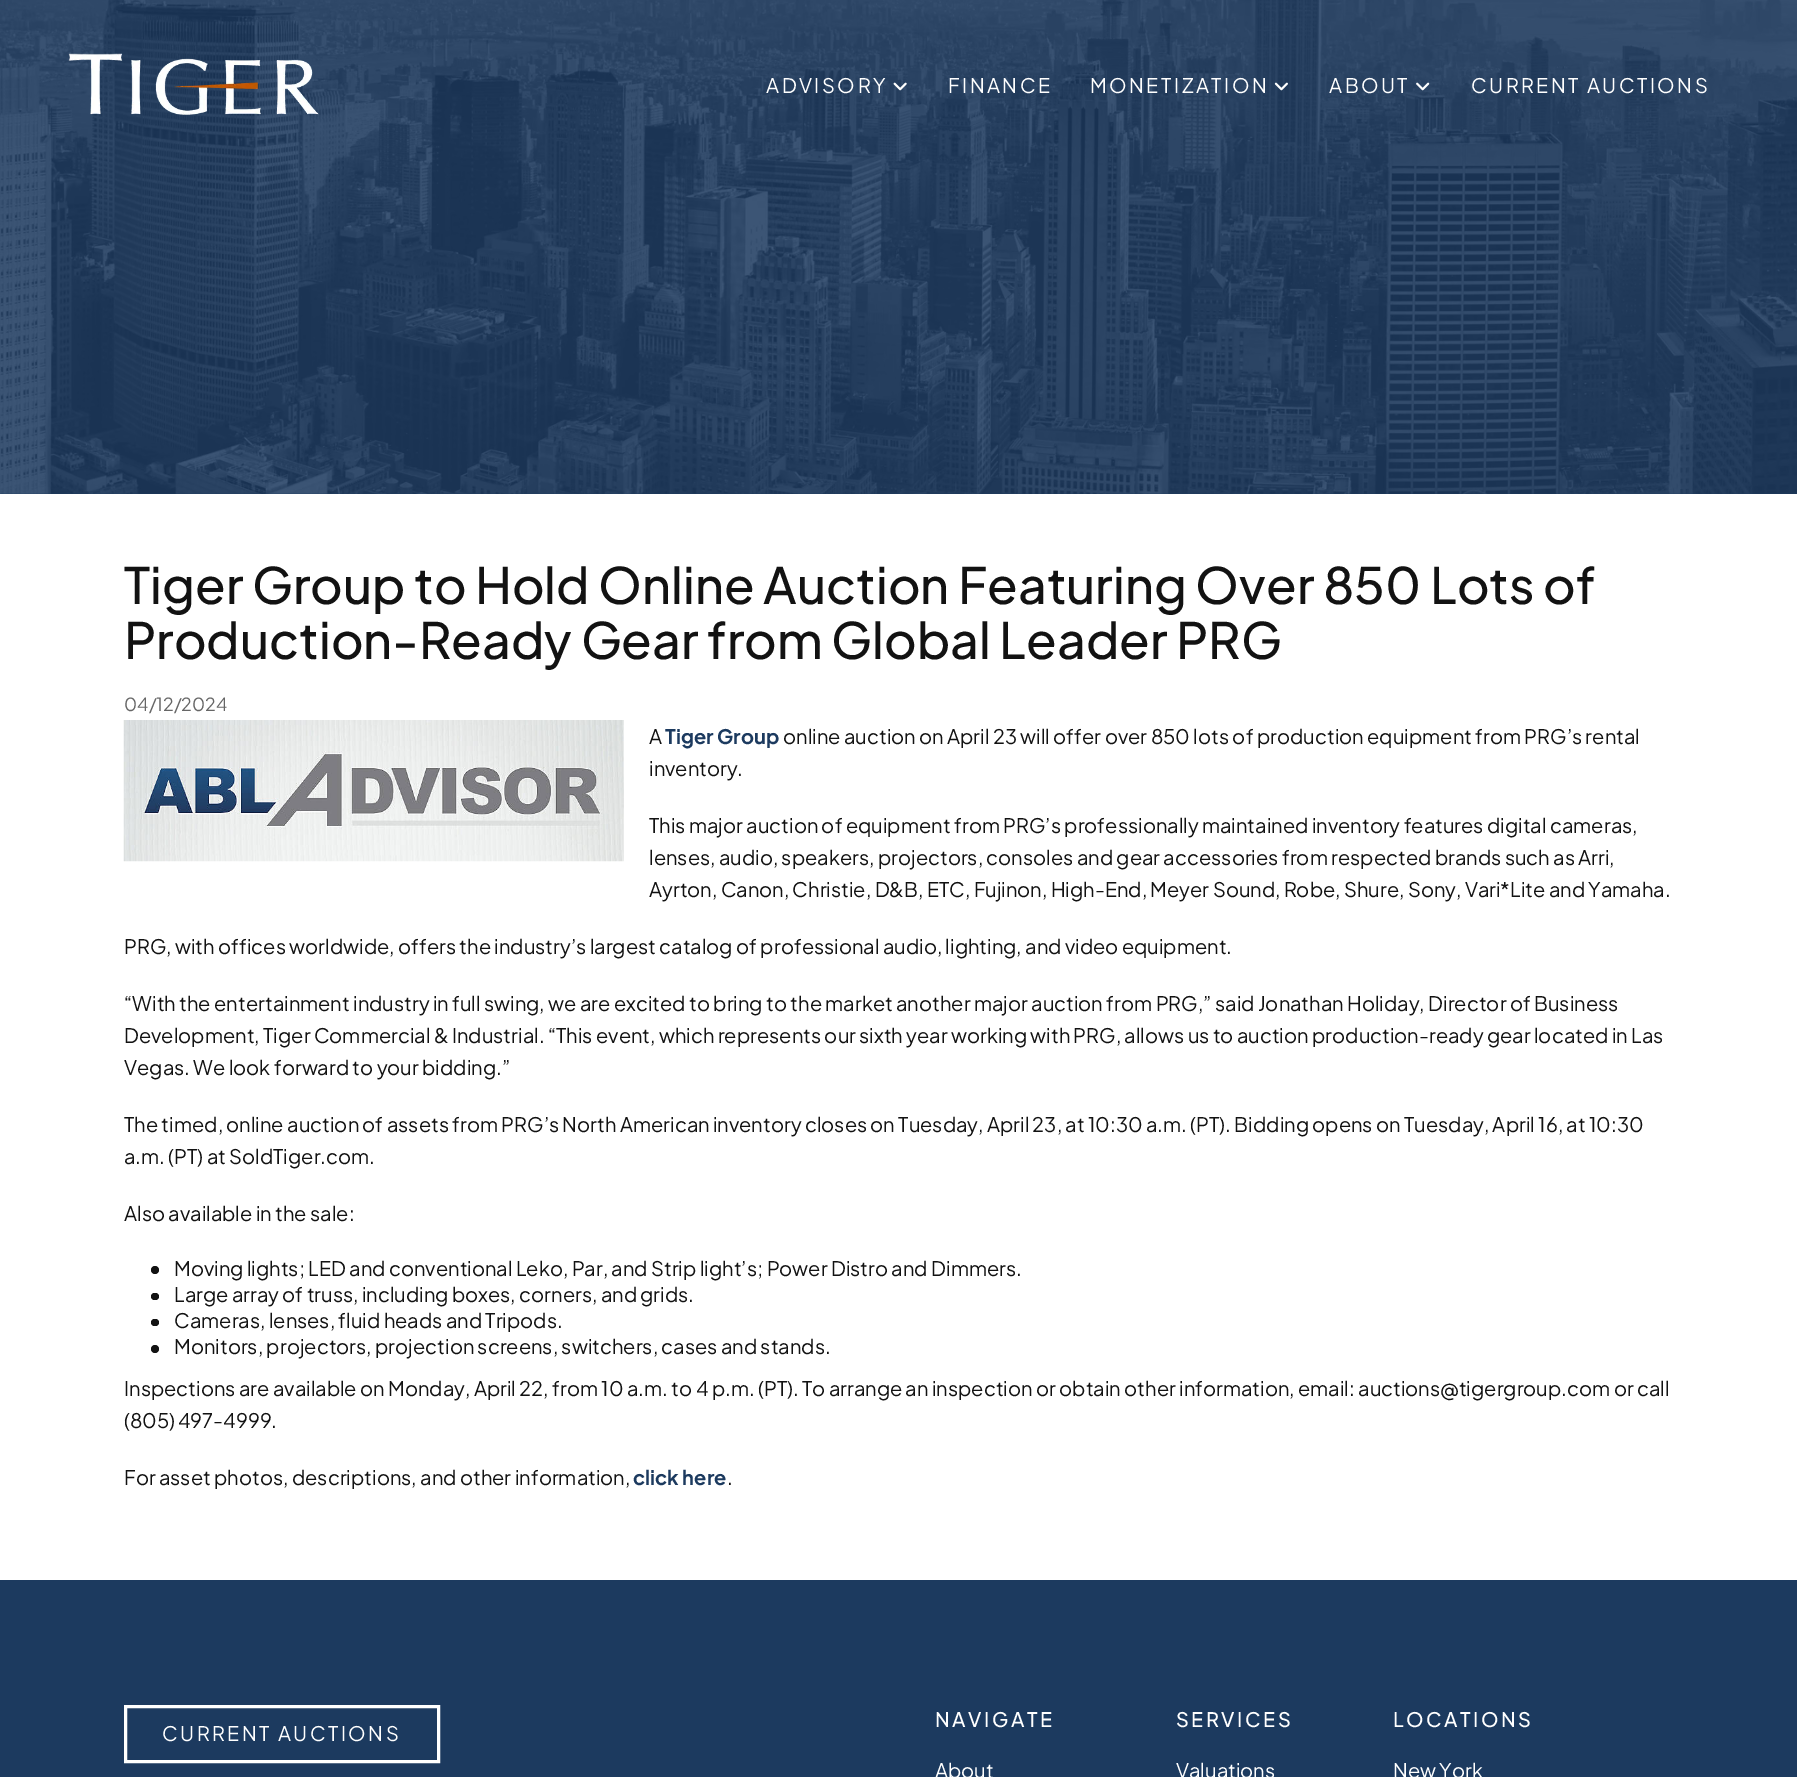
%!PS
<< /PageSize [1797 1777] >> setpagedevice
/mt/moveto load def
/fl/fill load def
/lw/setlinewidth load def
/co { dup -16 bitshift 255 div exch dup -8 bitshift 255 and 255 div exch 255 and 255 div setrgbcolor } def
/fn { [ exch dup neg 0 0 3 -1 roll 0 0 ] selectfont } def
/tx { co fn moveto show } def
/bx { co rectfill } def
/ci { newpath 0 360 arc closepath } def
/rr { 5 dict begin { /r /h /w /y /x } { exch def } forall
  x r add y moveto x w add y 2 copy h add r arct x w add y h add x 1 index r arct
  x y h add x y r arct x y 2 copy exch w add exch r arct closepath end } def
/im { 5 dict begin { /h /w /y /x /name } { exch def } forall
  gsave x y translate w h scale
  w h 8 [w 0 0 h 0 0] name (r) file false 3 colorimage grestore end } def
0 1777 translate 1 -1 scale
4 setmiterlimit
0 0 1797 1777 16#FFFFFF bx
0 0 1797 494 16#1C3A5F bx
(media/1.raw) 0 0 1797 494 im
(media/2.raw) 68 53 251 62 im
(media/3.raw) 893 82 14 9 im
(media/4.raw) 1274 82 14 9 im
(media/5.raw) 1416 82 14 9 im
(media/6.raw) 123 720 501 142 im
16#121212 co
155 1270 4 ci fl
151 1293 8 7 3.5 rr fl
151 1319 8 7 3.5 rr fl
155 1349 4 ci fl
0 1580 1797 197 16#1C3A5F bx
16#FFFFFF co
3 lw
125.5 1706.5 313 55 rectstroke
/PlusJakartaSans-Regular 20 fn
766 93 mt 2.5 0 (ADVISORY) ashow
948 93 mt 2.5 0 (FINANCE) ashow
1090 93 mt 2.5 0 (MONETIZATION) ashow
1329 93 mt 2.5 0 (ABOUT) ashow
1471 93 mt 2.5 0 (CURRENT AUCTIONS) ashow
(Tiger Group to Hold Online Auction Featuring Over 850 Lots of) 124 604 /PlusJakartaSans-Medium 50 16#121212 tx
(Production-Ready Gear from Global Leader PRG) 124 659 /PlusJakartaSans-Medium 50 16#121212 tx
(04/12/2024) 124 711 /PlusJakartaSans-Regular 18 16#666666 tx
(A) 649 744 /PlusJakartaSans-Regular 20 16#121212 tx
(Tiger Group) 665 744 /PlusJakartaSans-Bold 20 16#1C3A5F tx
(online auction on April 23 will offer over 850 lots of production equipment from PRG’s rental) 783 744 /PlusJakartaSans-Regular 20 16#121212 tx
(inventory.) 649 776 /PlusJakartaSans-Regular 20 16#121212 tx
(This major auction of equipment from PRG’s professionally maintained inventory features digital cameras,) 649 833 /PlusJakartaSans-Regular 20 16#121212 tx
(lenses, audio, speakers, projectors, consoles and gear accessories from respected brands such as Arri,) 649 865 /PlusJakartaSans-Regular 20 16#121212 tx
(Ayrton, Canon, Christie, D&B, ETC, Fujinon, High-End, Meyer Sound, Robe, Shure, Sony, Vari*Lite and Yamaha.) 649 897 /PlusJakartaSans-Regular 20 16#121212 tx
(PRG, with offices worldwide, offers the industry’s largest catalog of professional audio, lighting, and video equipment.) 124 954 /PlusJakartaSans-Regular 20 16#121212 tx
(“With the entertainment industry in full swing, we are excited to bring to the market another major auction from PRG,” said Jonathan Holiday, Director of Business) 124 1011 /PlusJakartaSans-Regular 20 16#121212 tx
(Development, Tiger Commercial & Industrial. “This event, which represents our sixth year working with PRG, allows us to auction production-ready gear located in Las) 124 1043 /PlusJakartaSans-Regular 20 16#121212 tx
(Vegas. We look forward to your bidding.”) 124 1075 /PlusJakartaSans-Regular 20 16#121212 tx
(The timed, online auction of assets from PRG’s North American inventory closes on Tuesday, April 23, at 10:30 a.m. \(PT\). Bidding opens on Tuesday, April 16, at 10:30) 124 1132 /PlusJakartaSans-Regular 20 16#121212 tx
(a.m. \(PT\) at SoldTiger.com.) 124 1164 /PlusJakartaSans-Regular 20 16#121212 tx
(Also available in the sale:) 124 1221 /PlusJakartaSans-Regular 20 16#121212 tx
(Moving lights; LED and conventional Leko, Par, and Strip light’s; Power Distro and Dimmers.) 174 1276 /PlusJakartaSans-Regular 20 16#121212 tx
(Large array of truss, including boxes, corners, and grids.) 174 1302 /PlusJakartaSans-Regular 20 16#121212 tx
(Cameras, lenses, fluid heads and Tripods.) 174 1328 /PlusJakartaSans-Regular 20 16#121212 tx
(Monitors, projectors, projection screens, switchers, cases and stands.) 174 1354 /PlusJakartaSans-Regular 20 16#121212 tx
(Inspections are available on Monday, April 22, from 10 a.m. to 4 p.m. \(PT\). To arrange an inspection or obtain other information, email: auctions@tigergroup.com or call) 124 1396 /PlusJakartaSans-Regular 20 16#121212 tx
124 1428 mt -1 0 32 (\(805\) 497-4999.) widthshow
(For asset photos, descriptions, and other information,) 124 1485 /PlusJakartaSans-Regular 20 16#121212 tx
(click here) 633 1485 /PlusJakartaSans-Bold 20 16#1C3A5F tx
(.) 727 1485 /PlusJakartaSans-Regular 20 16#121212 tx
16#FFFFFF co
162 1741 mt 2.5 0 (CURRENT AUCTIONS) ashow
/PlusJakartaSans-Medium 20 fn
935 1727 mt 2.5 0 (NAVIGATE) ashow
(About) 935 1778 /PlusJakartaSans-Regular 20 16#FFFFFF tx
/PlusJakartaSans-Medium 20 fn
1176 1727 mt 2.5 0 (SERVICES) ashow
(Valuations) 1176 1778 /PlusJakartaSans-Regular 20 16#FFFFFF tx
/PlusJakartaSans-Medium 20 fn
1393 1727 mt 2.5 0 (LOCATIONS) ashow
(New York) 1393 1778 /PlusJakartaSans-Regular 20 16#FFFFFF tx
showpage
